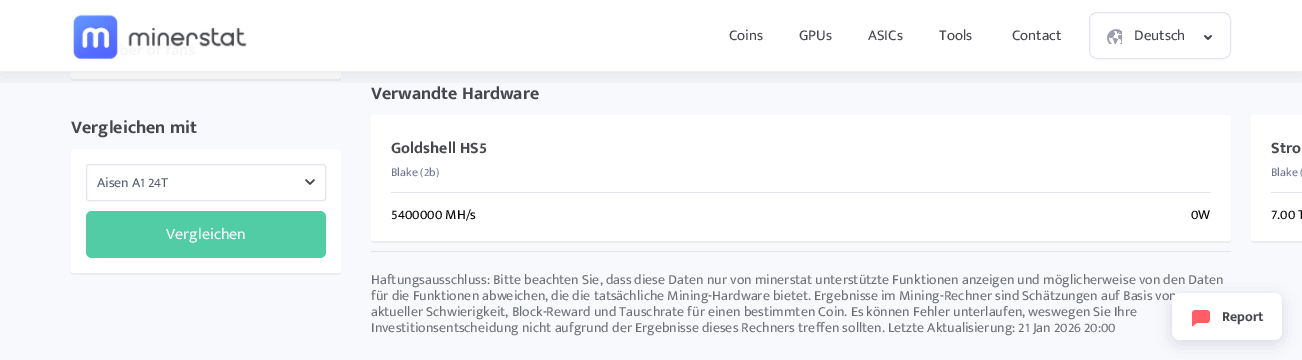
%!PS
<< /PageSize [1302 360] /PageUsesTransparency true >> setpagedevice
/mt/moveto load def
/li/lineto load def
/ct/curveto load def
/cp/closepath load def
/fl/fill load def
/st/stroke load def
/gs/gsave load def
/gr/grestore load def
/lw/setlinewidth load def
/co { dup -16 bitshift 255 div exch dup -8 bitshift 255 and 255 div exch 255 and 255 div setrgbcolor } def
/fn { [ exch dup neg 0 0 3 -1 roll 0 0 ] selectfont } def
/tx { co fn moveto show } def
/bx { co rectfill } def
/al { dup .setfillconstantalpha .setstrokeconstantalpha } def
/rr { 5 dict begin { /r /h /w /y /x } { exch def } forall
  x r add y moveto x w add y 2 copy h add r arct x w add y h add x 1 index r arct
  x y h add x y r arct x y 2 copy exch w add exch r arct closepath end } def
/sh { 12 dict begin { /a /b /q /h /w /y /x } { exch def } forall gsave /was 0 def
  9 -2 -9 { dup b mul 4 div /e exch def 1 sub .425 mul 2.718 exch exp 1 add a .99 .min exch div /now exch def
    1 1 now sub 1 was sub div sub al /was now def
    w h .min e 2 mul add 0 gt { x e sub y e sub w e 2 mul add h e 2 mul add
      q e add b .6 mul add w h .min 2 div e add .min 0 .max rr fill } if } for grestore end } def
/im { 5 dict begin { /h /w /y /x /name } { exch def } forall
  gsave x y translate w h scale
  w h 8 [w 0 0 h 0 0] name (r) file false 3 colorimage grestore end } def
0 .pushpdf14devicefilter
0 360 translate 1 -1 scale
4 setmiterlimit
0 0 1302 360 16#F8F9FC bx
0 0 1302 71 16#FFFFFF bx
16#ECEDEF co
71 76 mt 71 78 li 71 80 72 81 74 81 ct 338 81 li 340 81 341 80 341 78 ct 341 76 li 341 78 340 79 338 79 ct 74 79 li 72 79 71 78 71 76 ct cp fl
16#FFFFFF co
71 -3 270 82 3 rr fl
gs
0 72 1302 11 rectclip
16#000000 co
0 4 1302 72 0 10 .08 sh
gr
0 71 1302 1 16#F0F2F7 bx
(media/1.raw) 73 14 174 45 im
16#E2E5EF co
1089.5 12.5 141 46 7.5 rr st
(media/2.raw) 1107 29 15 15 im
(media/3.raw) 1204 35 8 5 im
16#ECEDEF co
71 270 mt 71 272 li 71 274 72 275 74 275 ct 338 275 li 340 275 341 274 341 272 ct 341 270 li 341 272 340 273 338 273 ct 74 273 li 72 273 71 272 71 270 ct cp fl
16#FFFFFF co
71 149 270 124 3 rr fl
16#E2E5EF co
86.5 164.5 239 36 2.5 rr st
16#46474F co
1.5 lw
1 setlinecap
1 setlinejoin
306 180 mt 310 184 li 314 180 li st
16#52CCA5 co
86 211 240 47 6 rr fl
16#ECEDEF co
371 238 mt 371 240 li 371 242 372 243 374 243 ct 1228 243 li 1230 243 1231 242 1231 240 ct 1231 238 li 1231 240 1230 241 1228 241 ct 374 241 li 372 241 371 240 371 238 ct cp fl
16#FFFFFF co
371 115 860 126 3 rr fl
391 192 820 1 16#E2E5EF bx
16#ECEDEF co
1251 238 mt 1251 240 li 1251 242 1252 243 1254 243 ct 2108 243 li 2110 243 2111 242 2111 240 ct 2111 238 li 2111 240 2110 241 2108 241 ct 1254 241 li 1252 241 1251 240 1251 238 ct cp fl
16#FFFFFF co
1251 115 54 126 3 rr fl
1271 192 31 1 16#E2E5EF bx
371 251 860 1 16#E2E5EF bx
16#00003C co
1172 297 110 47 8 8 .12 sh
(Coins) 729 40 /MuktaMahee-Regular 15 16#46474F tx
(GPUs) 799 40 /MuktaMahee-Regular 15 16#46474F tx
(ASICs) 868 40 /MuktaMahee-Regular 15 16#46474F tx
(Tools) 939 40 /MuktaMahee-Regular 15 16#46474F tx
(Contact) 1012 40 /MuktaMahee-Regular 15 16#46474F tx
(Deutsch) 1134 40 /MuktaMahee-Regular 15 16#46474F tx
(Vergleichen mit) 71 133 /MuktaMahee-Bold 18 16#46474F tx
(Aisen A1 24T) 97 187 /MuktaMahee-Regular 14 16#575E71 tx
(Vergleichen) 166 239 /MuktaMahee-Regular 16 16#FFFFFF tx
(Verwandte Hardware) 371 99 /MuktaMahee-Bold 18 16#46474F tx
(Goldshell HS5) 391 153 /MuktaMahee-Bold 16 16#46474F tx
(Blake \(2b\)) 391 176 /MuktaMahee-Regular 12 16#6F7490 tx
(5400000 MH/s) 391 219 /MuktaMahee-Regular 14 16#000000 tx
(0W) 1191 219 /MuktaMahee-Regular 14 16#000000 tx
(Stro) 1271 153 /MuktaMahee-Bold 16 16#46474F tx
(Blake \() 1271 176 /MuktaMahee-Regular 12 16#6F7490 tx
(7.00 T) 1271 219 /MuktaMahee-Regular 14 16#000000 tx
(Haftungsausschluss: Bitte beachten Sie, dass diese Daten nur von minerstat unterstützte Funktionen anzeigen und möglicherweise von den Daten) 371 284 /MuktaMahee-Regular 14 16#6C6E79 tx
(für die Funktionen abweichen, die die tatsächliche Mining-Hardware bietet. Ergebnisse im Mining-Rechner sind Schätzungen auf Basis von) 371 300 /MuktaMahee-Regular 14 16#6C6E79 tx
(aktueller Schwierigkeit, Block-Reward und Tauschrate für einen bestimmten Coin. Es können Fehler unterlaufen, weswegen Sie Ihre) 371 316 /MuktaMahee-Regular 14 16#6C6E79 tx
(Investitionsentscheidung nicht aufgrund der Ergebnisse dieses Rechners treffen sollten. Letzte Aktualisierung: 21 Jan 2026 20:00) 371 332 /MuktaMahee-Regular 14 16#6C6E79 tx
16#FFFFFF co
1172 293 110 47 8 rr fl
(media/4.raw) 1192 310 18 17 im
(Report) 1222 321 /MuktaMahee-Bold 14 16#46474F tx
.poppdf14devicefilter showpage
